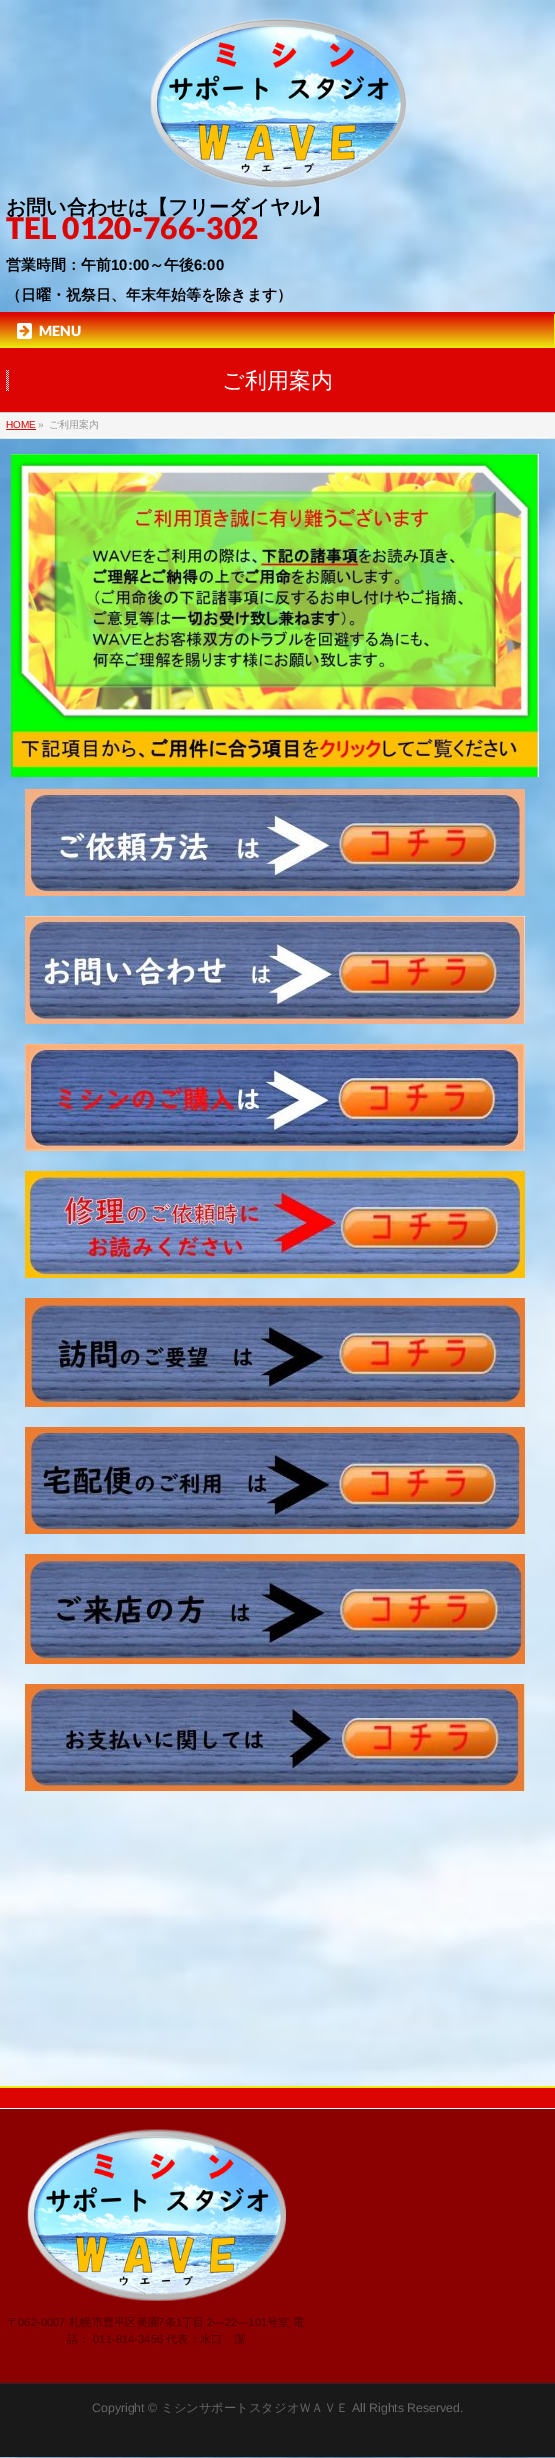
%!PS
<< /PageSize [555 2458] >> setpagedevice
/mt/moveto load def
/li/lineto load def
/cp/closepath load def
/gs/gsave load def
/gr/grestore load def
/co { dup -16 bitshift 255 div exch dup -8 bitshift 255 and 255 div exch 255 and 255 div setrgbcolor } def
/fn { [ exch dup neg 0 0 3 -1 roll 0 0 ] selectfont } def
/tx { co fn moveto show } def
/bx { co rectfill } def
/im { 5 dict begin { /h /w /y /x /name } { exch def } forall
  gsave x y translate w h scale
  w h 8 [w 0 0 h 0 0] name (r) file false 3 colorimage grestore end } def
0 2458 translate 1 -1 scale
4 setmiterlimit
0 0 555 2458 16#FFFFFF bx
(media/1.raw) 0 0 555 2458 im
(media/2.raw) 150 18 256 170 im
0 312 555 2 16#DD0404 bx
gs 0 314 mt 554 314 li 554 348 li 0 348 li cp clip newpath
<< /ShadingType 2 /ColorSpace /DeviceRGB /Coords [277 314 277 348] /Extend [true true] /Function << /FunctionType 2 /Domain [0 1] /C0 [.867 .016 .016] /C1 [.929 .929 .055] /N 1 >> >> shfill gr
554 314 1 34 16#EDED0E bx
(media/3.raw) 17 323 15 16 im
0 348 555 64 16#DD0404 bx
0 412 555 1 16#CCCCCC bx
(media/4.raw) 6 370 3 21 im
0 413 555 25 16#F5F5F5 bx
0 438 555 1 16#E5E5E5 bx
6 437 543 1 16#FFFFFF bx
6 429 30 1 16#DD0404 bx
(media/5.raw) 11 454 528 323 im
(media/6.raw) 25 789 500 107 im
(media/7.raw) 25 916 500 108 im
(media/8.raw) 25 1044 500 107 im
(media/9.raw) 25 1171 500 107 im
(media/10.raw) 25 1298 500 109 im
(media/11.raw) 25 1427 500 107 im
(media/12.raw) 25 1554 500 110 im
(media/13.raw) 25 1684 500 107 im
0 2088 555 20 16#DD0404 bx
0 2086 555 2 16#EDED0E bx
0 2109 555 274 16#8B0000 bx
0 2108 555 1 16#FFFFFF bx
(media/14.raw) 27 2129 259 172 im
0 2384 555 73 16#191919 bx
0 2383 555 1 16#262626 bx
(お問い合わせは【フリーダイヤル】) 6 214 /WenQuanYiZenHei-Bold 20 16#000000 tx
(TEL 0120-766-302) 6 239 /Lato-Black 30 16#DD0404 tx
(営業時間：午前) 6 270 /WenQuanYiZenHei-Bold 15 16#000000 tx
(10:00) 111 270 /LiberationSans-Bold 15 16#000000 tx
(～午後) 149 270 /WenQuanYiZenHei-Bold 15 16#000000 tx
(6:00) 194 270 /LiberationSans-Bold 15 16#000000 tx
(（日曜・祝祭日、年末年始等を除きます）) 6 300 /WenQuanYiZenHei-Bold 15 16#000000 tx
(MENU) 39 336 /Lato-Black 14 16#FFFFFF tx
(ご利用案内) 222 388 /WenQuanYiZenHei-Medium 22 16#FFFFFF tx
(HOME) 6 428 /LiberationSans-Regular 10 16#DD0404 tx
(») 38 428 /LiberationSans-Regular 10 16#999999 tx
(ご利用案内) 49 428 /WenQuanYiZenHei-Medium 10 16#999999 tx
(〒) 7 2326 /WenQuanYiZenHei-Medium 11.25 16#4C0102 tx
(062-0007) 18 2326 /LiberationSans-Regular 11.25 16#4C0102 tx
(札幌市豊平区美園) 69 2326 /WenQuanYiZenHei-Medium 11.25 16#4C0102 tx
(7) 158 2326 /LiberationSans-Regular 11.25 16#4C0102 tx
(条) 165 2326 /WenQuanYiZenHei-Medium 11.25 16#4C0102 tx
(1) 176 2326 /LiberationSans-Regular 11.25 16#4C0102 tx
(丁目) 182 2326 /WenQuanYiZenHei-Medium 11.25 16#4C0102 tx
(2―22―101) 207 2326 /LiberationSans-Regular 11.25 16#4C0102 tx
(号室) 267 2326 /WenQuanYiZenHei-Medium 11.25 16#4C0102 tx
(電) 293 2326 /WenQuanYiZenHei-Medium 11.25 16#4C0102 tx
(話：) 67 2343 /WenQuanYiZenHei-Medium 11.25 16#4C0102 tx
(011-814-3456) 93 2343 /LiberationSans-Regular 11.25 16#4C0102 tx
(代表：水口　潔) 166 2343 /WenQuanYiZenHei-Medium 11.25 16#4C0102 tx
(Copyright ©) 92 2412 /LiberationSans-Regular 12.3 16#666666 tx
(ミシンサポートスタジオＷＡＶＥ) 161 2412 /WenQuanYiZenHei-Medium 12.3 16#666666 tx
(All Rights Reserved.) 352 2412 /LiberationSans-Regular 12.3 16#666666 tx
showpage
